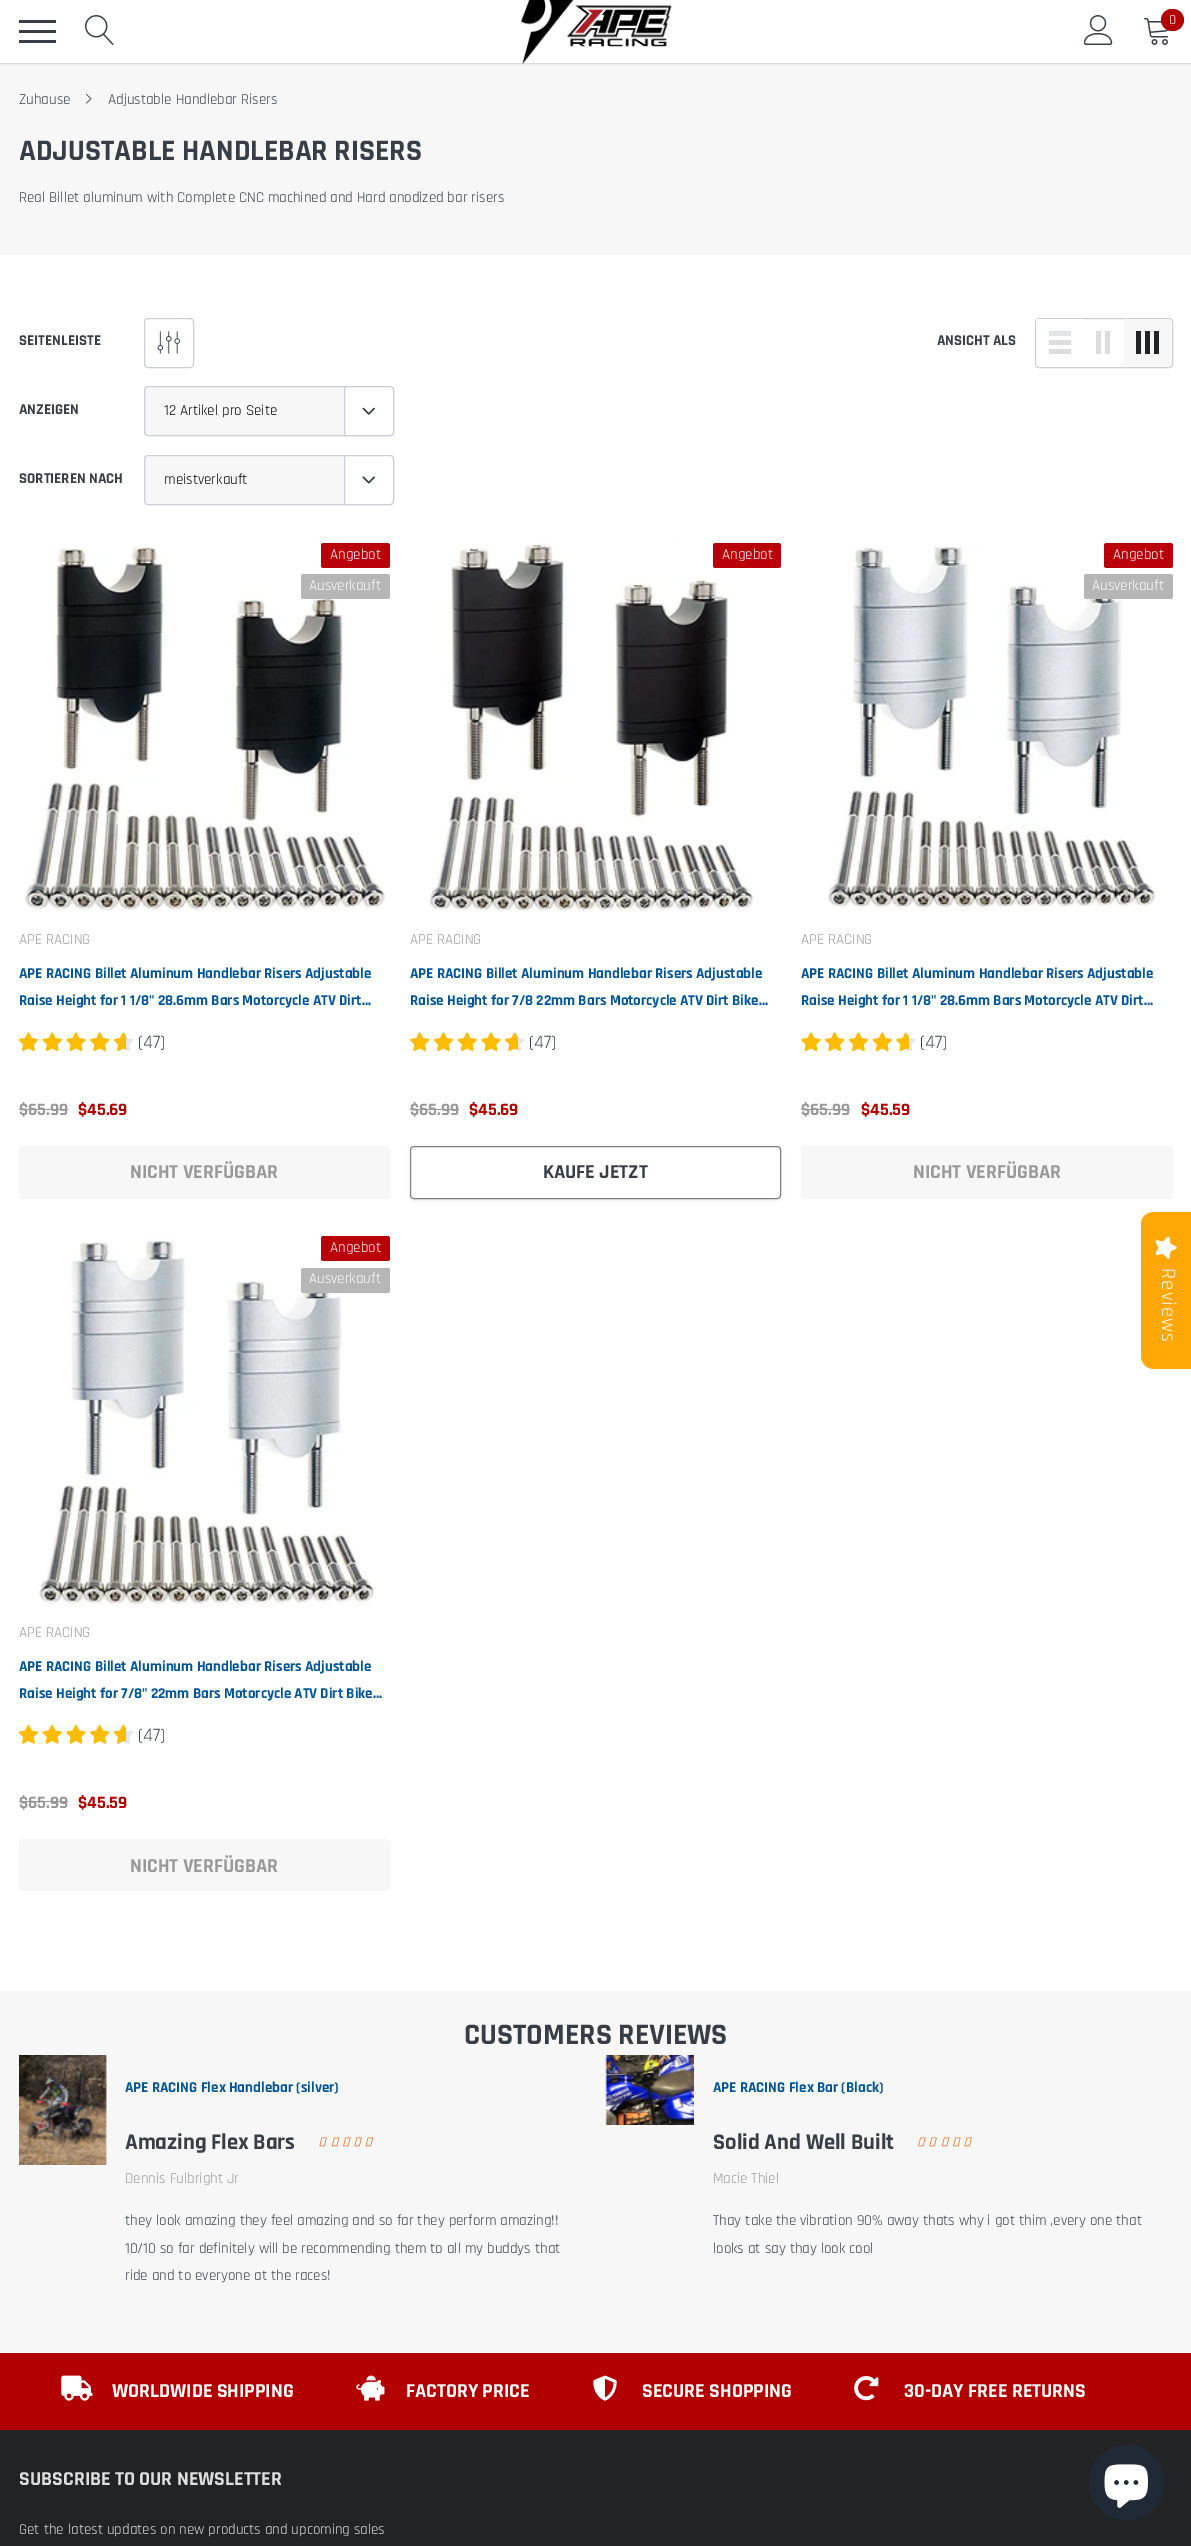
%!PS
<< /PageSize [1191 2546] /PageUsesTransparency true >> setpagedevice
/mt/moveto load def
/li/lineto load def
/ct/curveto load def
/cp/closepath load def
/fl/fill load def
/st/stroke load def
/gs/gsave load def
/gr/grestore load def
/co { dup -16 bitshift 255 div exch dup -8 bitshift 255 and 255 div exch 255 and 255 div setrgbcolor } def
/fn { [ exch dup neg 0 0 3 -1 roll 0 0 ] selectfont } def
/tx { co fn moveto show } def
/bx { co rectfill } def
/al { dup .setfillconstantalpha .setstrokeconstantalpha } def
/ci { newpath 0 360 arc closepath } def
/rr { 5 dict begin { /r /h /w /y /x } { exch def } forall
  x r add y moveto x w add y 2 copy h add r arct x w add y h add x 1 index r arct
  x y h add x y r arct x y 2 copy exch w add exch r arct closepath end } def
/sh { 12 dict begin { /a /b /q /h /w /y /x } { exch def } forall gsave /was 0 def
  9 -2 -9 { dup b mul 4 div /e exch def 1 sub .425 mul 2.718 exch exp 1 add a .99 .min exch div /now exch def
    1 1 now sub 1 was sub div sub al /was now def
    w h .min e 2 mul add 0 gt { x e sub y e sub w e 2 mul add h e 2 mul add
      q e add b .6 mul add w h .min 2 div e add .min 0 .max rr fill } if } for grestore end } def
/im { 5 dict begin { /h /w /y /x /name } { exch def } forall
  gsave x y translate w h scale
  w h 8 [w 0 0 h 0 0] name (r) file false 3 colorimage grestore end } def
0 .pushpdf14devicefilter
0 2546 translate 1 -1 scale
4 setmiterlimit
0 0 1191 2546 16#FFFFFF bx
0 63 1191 192 16#F7F7F7 bx
16#000000 co
0 1 1191 63 0 1 .15 sh
0 0 1191 63 16#FFFFFF bx
19 30 37 3 16#383E47 bx
19 20 37 3 16#383E47 bx
19 40 37 3 16#383E47 bx
(media/1.raw) 85 15 29 30 im
(media/2.raw) 521 0 151 64 im
(media/3.raw) 1084 15 29 30 im
(media/4.raw) 1144 18 24 27 im
16#B20000 co
1161 9 23 22 11 rr fl
(media/5.raw) 85 94 7 10 im
16#CCCFD6 co
144.5 318.5 49 49 3.5 rr st
(media/6.raw) 157 331 23 23 im
1035.5 318.5 137 49 3.5 rr st
16#FFFFFF co
1038.5 319 mt 1084 319 li 1084 366 li 1038.5 366 li 1037 366 1036 365 1036 363.5 ct 1036 321.5 li 1036 320 1037 319 1038.5 319 ct cp fl
1049 349 22 5 16#DCDCDC bx
1049 340 22 5 16#DCDCDC bx
1049 331 22 5 16#E2E4E8 bx
1105 331 5 23 16#DCDCDC bx
1096 331 5 23 16#DCDCDC bx
16#F7F7F7 co
1124 319 mt 1168.5 319 li 1170 319 1171 320 1171 321.5 ct 1171 363.5 li 1171 365 1170 366 1168.5 366 ct 1124 366 li cp fl
1154 331 5 23 16#222326 bx
1145 331 5 23 16#222326 bx
1136 331 5 23 16#222326 bx
16#F7F7F7 co
144.5 386.5 249 49 3.5 rr gs fl gr
16#CCCFD6 co
st
16#FFFFFF co
344.5 386.5 mt 390 386.5 li 392 386.5 393.5 388 393.5 390 ct 393.5 432 li 393.5 434 392 435.5 390 435.5 ct 344.5 435.5 li cp gs fl gr
16#CCCFD6 co
st
(media/7.raw) 362 407 13 8 im
16#F7F7F7 co
144.5 455.5 249 49 3.5 rr gs fl gr
16#CCCFD6 co
st
16#FFFFFF co
344.5 455.5 mt 390 455.5 li 392 455.5 393.5 457 393.5 459 ct 393.5 501 li 393.5 503 392 504.5 390 504.5 ct 344.5 504.5 li cp gs fl gr
16#CCCFD6 co
st
(media/8.raw) 362 476 13 8 im
(media/9.raw) 24 547 362 364 im
16#B9000A co
321 543 69 25 2.5 rr fl
16#B6B6B6 co
301 574 89 25 2.5 rr fl
(media/10.raw) 19 1032 20 20 im
(media/11.raw) 42 1032 20 20 im
(media/12.raw) 66 1032 20 20 im
(media/13.raw) 90 1032 20 20 im
(media/14.raw) 114 1032 19 19 im
(media/15.raw) 114 1033 12 18 im
19 1109 49 1 16#999999 bx
16#F7F7F7 co
19 1146 371 53 4 rr fl
(media/16.raw) 445 542 299 1 im
(media/17.raw) 429 543 325 369 im
16#B9000A co
713 543 68 25 2.5 rr fl
(media/13.raw) 410 1032 20 20 im
(media/18.raw) 433 1032 21 20 im
(media/11.raw) 457 1032 20 20 im
(media/12.raw) 481 1032 20 20 im
(media/19.raw) 505 1032 20 19 im
(media/20.raw) 505 1033 13 18 im
410 1109 49 1 16#999999 bx
16#000000 co
410 1148 371 52 4 2 .1 sh
16#FFFFFF co
410.5 1146.5 370 52 3.5 rr gs fl gr
16#808287 co
st
(media/21.raw) 828 545 329 366 im
16#B9000A co
1104 543 69 25 2.5 rr fl
16#B6B6B6 co
1084 574 89 25 2.5 rr fl
(media/12.raw) 801 1032 20 20 im
(media/13.raw) 825 1032 20 20 im
(media/18.raw) 848 1032 21 20 im
(media/11.raw) 872 1032 20 20 im
(media/22.raw) 896 1032 20 19 im
(media/23.raw) 896 1033 13 18 im
801 1109 49 1 16#999999 bx
16#F7F7F7 co
801 1146 372 53 4 rr fl
(media/24.raw) 39 1238 337 367 im
16#B9000A co
321 1236 69 25 2.5 rr fl
16#B6B6B6 co
301 1268 89 25 2.5 rr fl
(media/25.raw) 19 1725 20 19 im
(media/26.raw) 42 1725 20 19 im
(media/27.raw) 66 1725 20 19 im
(media/28.raw) 90 1725 20 19 im
(media/29.raw) 113 1725 20 19 im
(media/30.raw) 114 1725 12 19 im
19 1801 49 1 16#999999 bx
16#F7F7F7 co
19 1839 371 52 4 rr fl
0 1991 1191 362 16#F7F7F7 bx
(media/31.raw) 19 2055 88 110 im
(media/32.raw) 319 2137 8 10 im
(media/33.raw) 331 2137 9 10 im
(media/34.raw) 343 2137 8 10 im
(media/32.raw) 354 2137 8 10 im
(media/35.raw) 365 2137 9 10 im
(media/36.raw) 605 2055 89 70 im
(media/34.raw) 918 2137 8 10 im
(media/32.raw) 929 2137 8 10 im
(media/33.raw) 941 2137 9 10 im
(media/34.raw) 953 2137 8 10 im
(media/32.raw) 964 2137 8 10 im
0 2353 1191 77 16#B20000 bx
(media/37.raw) 61 2375 32 26 im
(media/38.raw) 356 2375 29 26 im
(media/39.raw) 593 2375 24 26 im
(media/40.raw) 854 2376 25 25 im
0 2430 1191 116 16#222325 bx
16#FEA705 co
1191 1212 mt 1191 1369 li 1154 1369 li 1147 1369 1141 1363 1141 1356 ct 1141 1224 li 1141 1217 1147 1212 1154 1212 ct cp fl
(media/41.raw) 1155 1236 22 23 im
16#202A36 co
1126.5 2482.5 37.5 ci fl
(media/42.raw) 1104 2464 44 44 im
(0) 1169 24 /Rajdhani-Regular 14 16#FFFFFF tx
(Zuhause) 19 104 /Rajdhani-Regular 15 16#383E47 tx
(Adjustable Handlebar Risers) 108 104 /Rajdhani-Regular 15 16#383E47 tx
(ADJUSTABLE HANDLEBAR RISERS) 19 160 /Rajdhani-Bold 30 16#383E47 tx
(Real Billet aluminum with Complete CNC machined and Hard anodized bar risers) 19 202 /Rajdhani-Regular 15 16#383E47 tx
(SEITENLEISTE) 19 345 /Rajdhani-Bold 15 16#383E47 tx
(ANSICHT ALS) 937 345 /Rajdhani-Bold 15 16#383E47 tx
(ANZEIGEN) 19 414 /Rajdhani-Bold 15 16#383E47 tx
(12 Artikel pro Seite) 164 415 /Rajdhani-Regular 15 16#000000 tx
(SORTIEREN NACH) 19 483 /Rajdhani-Bold 15 16#383E47 tx
(meistverkauft) 164 484 /Rajdhani-Regular 15 16#000000 tx
(Angebot) 330 559 /Rajdhani-Regular 15 16#FFFFFF tx
(Ausverkauft) 309 590 /Rajdhani-Regular 15 16#FFFFFF tx
(APE RACING) 19 944 /Rajdhani-Regular 15 16#999999 tx
(APE RACING Billet Aluminum Handlebar Risers Adjustable) 19 978 /Rajdhani-Bold 15 16#005599 tx
(Raise Height for 1 1/8" 28.6mm Bars Motorcycle ATV Dirt…) 19 1005 /Rajdhani-Bold 15 16#005599 tx
(\(47\)) 138 1048 /Rajdhani-Regular 19 16#383E47 tx
($65.99) 19 1115 /Rajdhani-Bold 17.5 16#999999 tx
($45.69) 78 1115 /Rajdhani-Bold 17.5 16#B20000 tx
(NICHT VERFÜGBAR) 130 1178 /Rajdhani-Bold 20 16#999999 tx
(Angebot) 722 559 /Rajdhani-Regular 15 16#FFFFFF tx
(APE RACING) 410 944 /Rajdhani-Regular 15 16#999999 tx
(APE RACING Billet Aluminum Handlebar Risers Adjustable) 410 978 /Rajdhani-Bold 15 16#005599 tx
(Raise Height for 7/8 22mm Bars Motorcycle ATV Dirt Bike…) 410 1005 /Rajdhani-Bold 15 16#005599 tx
(\(47\)) 529 1048 /Rajdhani-Regular 19 16#383E47 tx
($65.99) 410 1115 /Rajdhani-Bold 17.5 16#999999 tx
($45.69) 469 1115 /Rajdhani-Bold 17.5 16#B20000 tx
(KAUFE JETZT) 543 1178 /Rajdhani-Bold 20 16#383E47 tx
(Angebot) 1113 559 /Rajdhani-Regular 15 16#FFFFFF tx
(Ausverkauft) 1092 590 /Rajdhani-Regular 15 16#FFFFFF tx
(APE RACING) 801 944 /Rajdhani-Regular 15 16#999999 tx
(APE RACING Billet Aluminum Handlebar Risers Adjustable) 801 978 /Rajdhani-Bold 15 16#005599 tx
(Raise Height for 1 1/8" 28.6mm Bars Motorcycle ATV Dirt…) 801 1005 /Rajdhani-Bold 15 16#005599 tx
(\(47\)) 920 1048 /Rajdhani-Regular 19 16#383E47 tx
($65.99) 801 1115 /Rajdhani-Bold 17.5 16#999999 tx
($45.59) 861 1115 /Rajdhani-Bold 17.5 16#B20000 tx
(NICHT VERFÜGBAR) 913 1178 /Rajdhani-Bold 20 16#999999 tx
(Angebot) 330 1252 /Rajdhani-Regular 15 16#FFFFFF tx
(Ausverkauft) 309 1283 /Rajdhani-Regular 15 16#FFFFFF tx
(APE RACING) 19 1637 /Rajdhani-Regular 15 16#999999 tx
(APE RACING Billet Aluminum Handlebar Risers Adjustable) 19 1671 /Rajdhani-Bold 15 16#005599 tx
(Raise Height for 7/8" 22mm Bars Motorcycle ATV Dirt Bike…) 19 1698 /Rajdhani-Bold 15 16#005599 tx
(\(47\)) 138 1741 /Rajdhani-Regular 19 16#383E47 tx
($65.99) 19 1808 /Rajdhani-Bold 17.5 16#999999 tx
($45.59) 78 1808 /Rajdhani-Bold 17.5 16#B20000 tx
(NICHT VERFÜGBAR) 130 1872 /Rajdhani-Bold 20 16#999999 tx
(CUSTOMERS REVIEWS) 464 2044 /Rajdhani-Bold 30 16#383E47 tx
(APE RACING Flex Handlebar \(silver\)) 125 2092 /Rajdhani-Bold 15 16#005599 tx
(Amazing Flex Bars) 125 2149 /Rajdhani-Bold 22.5 16#383E47 tx
(Dennis Fulbright Jr) 125 2183 /Rajdhani-Regular 15 16#999999 tx
(they look amazing they feel amazing and so far they perform amazing!!) 125 2225 /Rajdhani-Regular 15 16#383E47 tx
(10/10 so far definitely will be recommending them to all my buddys that) 125 2253 /Rajdhani-Regular 15 16#383E47 tx
(ride and to everyone at the races!) 125 2280 /Rajdhani-Regular 15 16#383E47 tx
(APE RACING Flex Bar \(Black\)) 713 2092 /Rajdhani-Bold 15 16#005599 tx
(Solid And Well Built) 713 2149 /Rajdhani-Bold 22.5 16#383E47 tx
(Macie Thiel) 713 2183 /Rajdhani-Regular 15 16#999999 tx
(Thay take the vibration 90% away thats why i got thim ,every one that) 713 2225 /Rajdhani-Regular 15 16#383E47 tx
(looks at say thay look cool) 713 2253 /Rajdhani-Regular 15 16#383E47 tx
(WORLDWIDE SHIPPING) 112 2397 /Rajdhani-Bold 20 16#FFFFFF tx
(FACTORY PRICE) 406 2397 /Rajdhani-Bold 20 16#FFFFFF tx
(SECURE SHOPPING) 642 2397 /Rajdhani-Bold 20 16#FFFFFF tx
(30-DAY FREE RETURNS) 904 2397 /Rajdhani-Bold 20 16#FFFFFF tx
(SUBSCRIBE TO OUR NEWSLETTER) 19 2485 /Rajdhani-Bold 20 16#DFDFDF tx
(Get the latest updates on new products and upcoming sales) 19 2534 /Rajdhani-Regular 15 16#DFDFDF tx
/Rajdhani-Regular 20.5 fn
16#FFFFFF co
gs 1162 1268 translate 90 rotate 0 0 mt 1.25 0 (Reviews) ashow gr
.poppdf14devicefilter showpage
